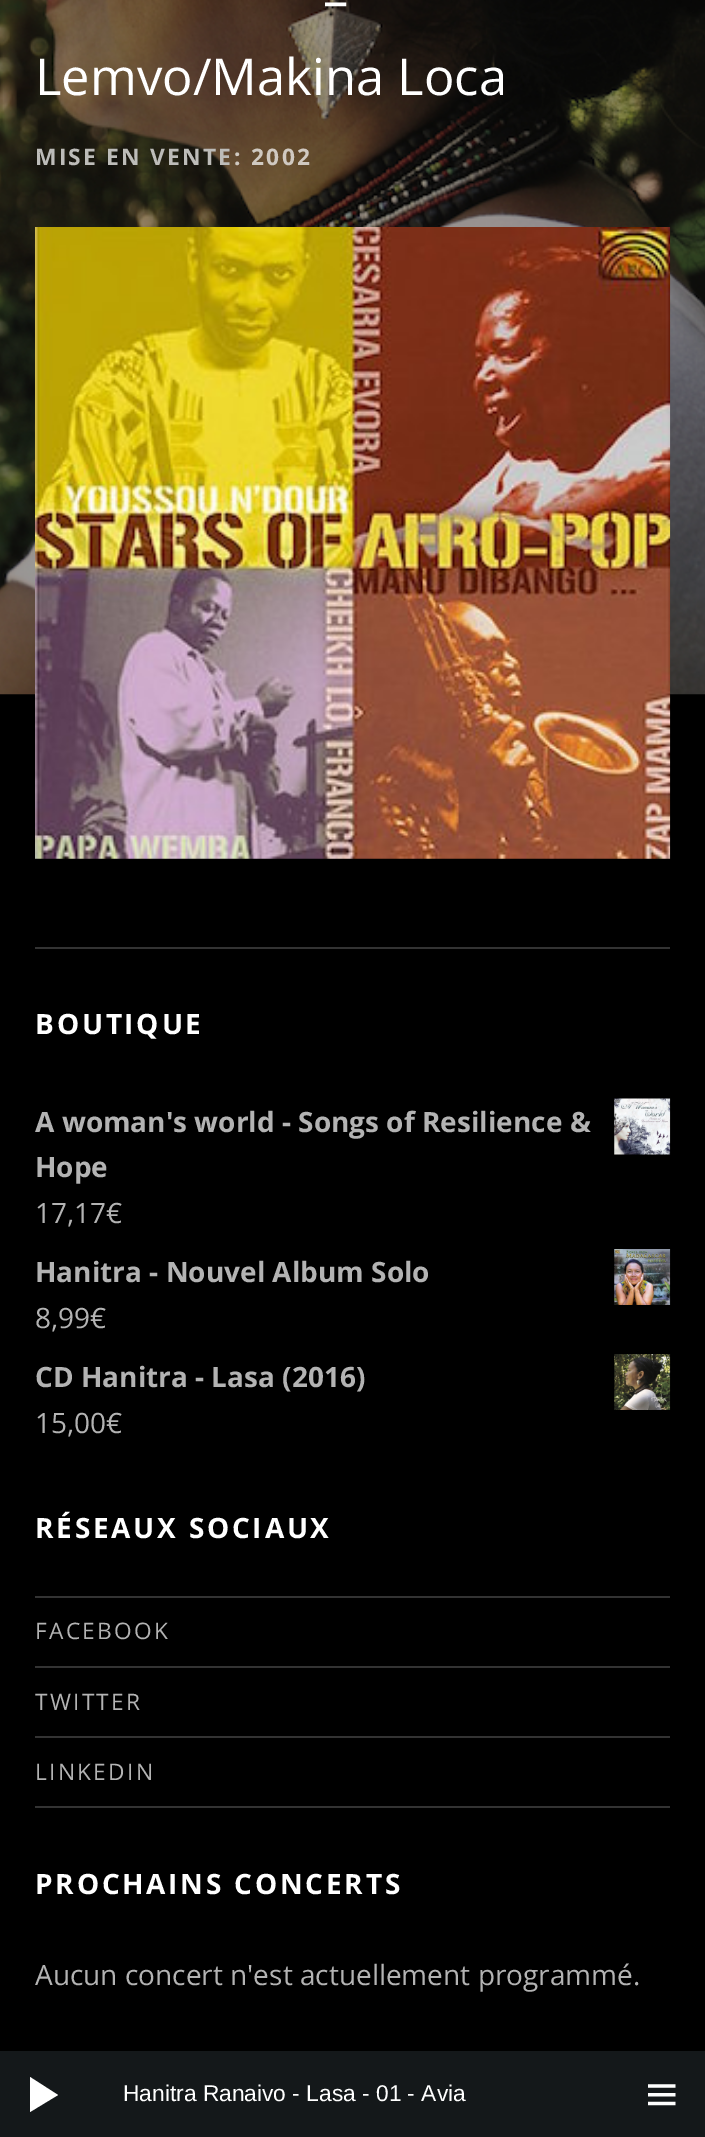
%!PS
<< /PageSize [705 2137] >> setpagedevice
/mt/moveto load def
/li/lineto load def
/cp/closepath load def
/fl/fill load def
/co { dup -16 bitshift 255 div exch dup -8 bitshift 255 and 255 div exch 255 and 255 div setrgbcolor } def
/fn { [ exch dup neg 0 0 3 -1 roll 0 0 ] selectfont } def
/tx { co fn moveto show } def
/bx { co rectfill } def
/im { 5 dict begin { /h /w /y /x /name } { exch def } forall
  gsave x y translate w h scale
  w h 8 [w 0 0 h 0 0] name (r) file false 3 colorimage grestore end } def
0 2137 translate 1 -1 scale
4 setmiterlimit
0 0 705 2137 16#000000 bx
(media/1.raw) 0 0 705 695 im
(media/2.raw) 35 227 636 632 im
35 947 635 2 16#333333 bx
(media/3.raw) 614 1098 57 57 im
(media/4.raw) 614 1249 57 56 im
(media/5.raw) 614 1354 57 56 im
35 1806 635 2 16#333333 bx
35 1596 635 2 16#333333 bx
35 1666 635 2 16#333333 bx
35 1736 635 2 16#333333 bx
0 2051 705 86 16#14181A bx
16#FFFFFF co
58 2095 mt 30 2112 li 30 2077 li cp fl
(media/6.raw) 648 2084 28 22 im
(–) 323 18 /OpenSans-Regular 50.75 16#FFFFFF tx
(Lemvo/Makina Loca) 35 95 /OpenSans-Regular 50.75 16#FFFFFF tx
/OpenSans-Bold 22.75 fn
16#BDBCB9 co
35 165 mt 2.25 0 (MISE EN VENTE) ashow
16#D0C9C1 co
234 165 mt 2.25 0 (:) ashow
251 165 mt 2.25 0 (2002) ashow
/OpenSans-Bold 28 fn
16#FFFFFF co
35 1034 mt 2.75 0 (BOUTIQUE) ashow
(A woman's world - Songs of Resilience &) 35 1132 /OpenSans-Bold 28 16#B3B3B3 tx
(Hope) 35 1177 /OpenSans-Bold 28 16#B3B3B3 tx
(17,17€) 35 1223 /OpenSans-Regular 28 16#B3B3B3 tx
(Hanitra - Nouvel Album Solo) 35 1282 /OpenSans-Bold 28 16#B3B3B3 tx
(8,99€) 35 1328 /OpenSans-Regular 28 16#B3B3B3 tx
(CD Hanitra - Lasa \(2016\)) 35 1387 /OpenSans-Bold 28 16#B3B3B3 tx
(15,00€) 35 1433 /OpenSans-Regular 28 16#B3B3B3 tx
/OpenSans-Bold 28 fn
16#FFFFFF co
35 1538 mt 2.75 0 (RÉSEAUX SOCIAUX) ashow
/OpenSans-Regular 22.75 fn
16#B3B3B3 co
35 1639 mt 2.25 0 (FACEBOOK) ashow
35 1710 mt 2.25 0 (TWITTER) ashow
35 1780 mt 2.25 0 (LINKEDIN) ashow
/OpenSans-Bold 28 fn
16#FFFFFF co
35 1894 mt 2.75 0 (PROCHAINS CONCERTS) ashow
(Aucun concert n'est actuellement programmé.) 35 1985 /OpenSans-Regular 28 16#B3B3B3 tx
(Hanitra Ranaivo - Lasa - 01 - Avia) 123 2101 /LiberationSans-Regular 22.75 16#FFFFFF tx
showpage
